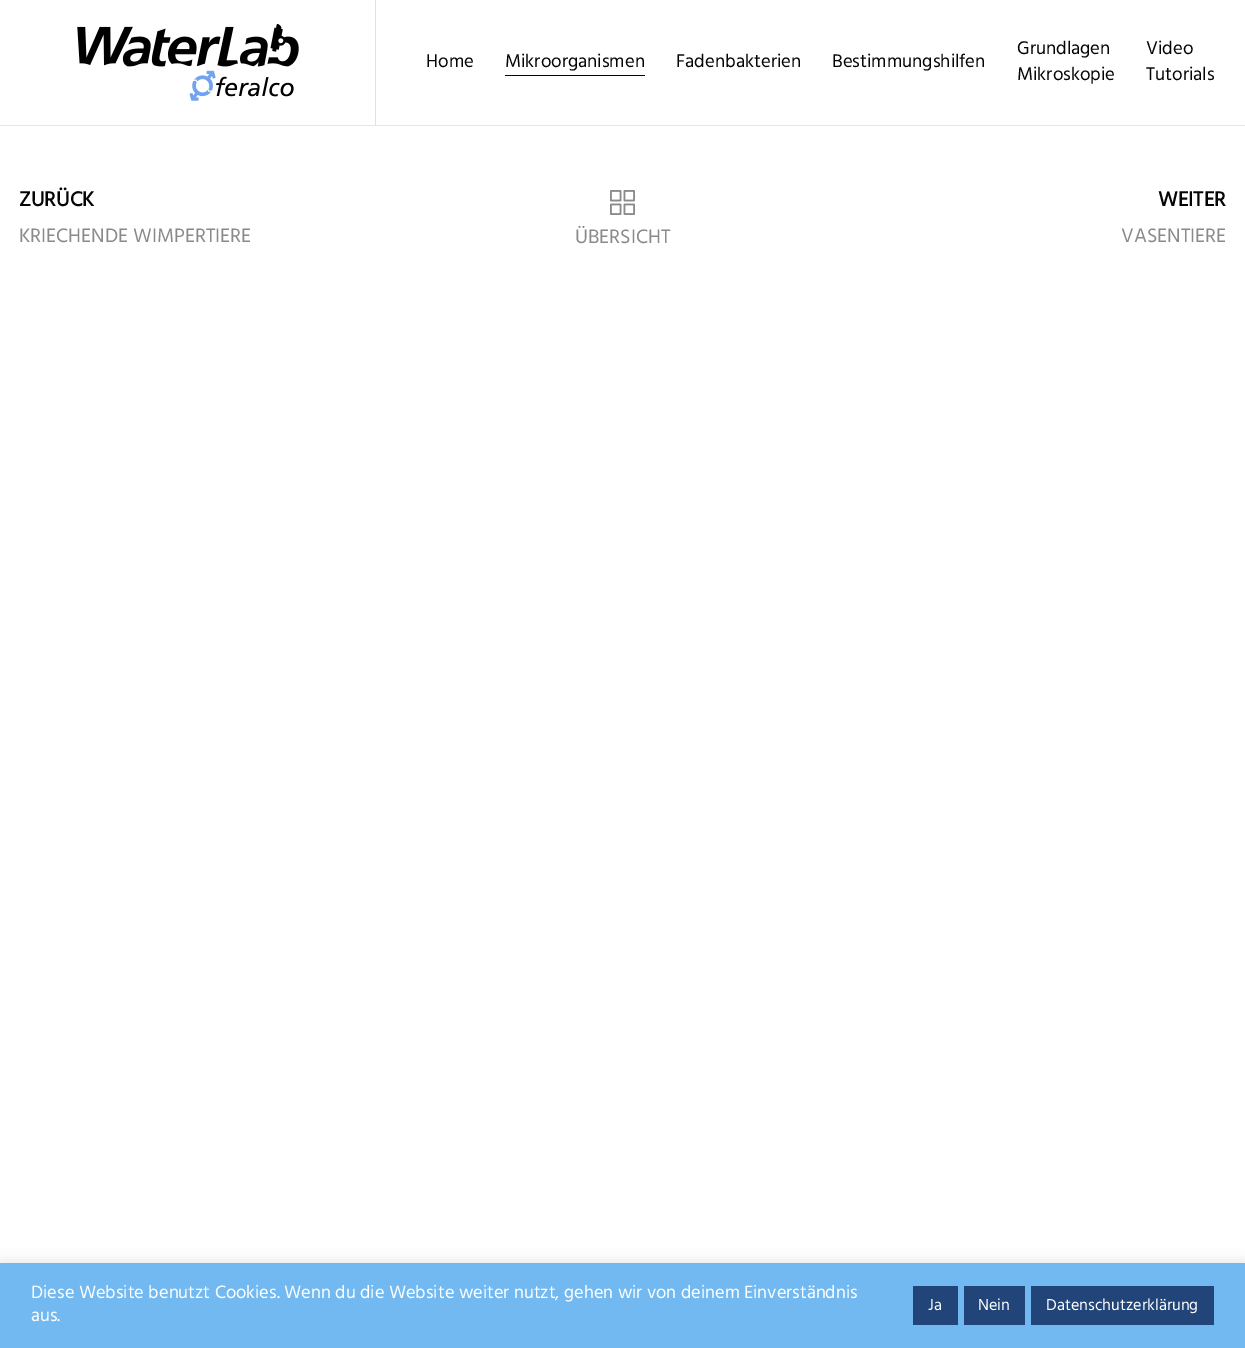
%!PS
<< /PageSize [1245 1348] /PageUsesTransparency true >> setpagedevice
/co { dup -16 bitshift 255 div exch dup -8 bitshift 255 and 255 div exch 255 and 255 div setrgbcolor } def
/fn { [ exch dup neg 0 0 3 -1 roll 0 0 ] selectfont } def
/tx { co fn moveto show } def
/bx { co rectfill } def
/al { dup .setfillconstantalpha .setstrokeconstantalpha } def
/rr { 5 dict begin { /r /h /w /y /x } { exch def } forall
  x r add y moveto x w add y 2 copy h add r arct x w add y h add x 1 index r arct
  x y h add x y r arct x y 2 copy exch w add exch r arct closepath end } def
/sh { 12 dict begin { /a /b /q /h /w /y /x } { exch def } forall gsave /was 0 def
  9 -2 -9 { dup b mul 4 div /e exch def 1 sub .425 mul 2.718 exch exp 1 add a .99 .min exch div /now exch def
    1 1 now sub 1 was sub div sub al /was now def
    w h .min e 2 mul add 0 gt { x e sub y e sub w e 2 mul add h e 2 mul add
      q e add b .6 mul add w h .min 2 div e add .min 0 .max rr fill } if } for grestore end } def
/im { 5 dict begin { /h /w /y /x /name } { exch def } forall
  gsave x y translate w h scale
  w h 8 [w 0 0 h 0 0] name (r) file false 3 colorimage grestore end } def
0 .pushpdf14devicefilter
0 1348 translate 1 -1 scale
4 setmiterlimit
0 0 1245 1348 16#FFFFFF bx
0 125 1245 1 16#E5E5E5 bx
375 0 1 125 16#DEE2E6 bx
(media/1.raw) 77 24 222 77 im
505 75 140 1 16#050505 bx
(media/2.raw) 610 190 25 25 im
16#ACABAB co
0 1261 1245 87 0 6 .3 sh
0 1263 1245 85 16#71B9F0 bx
913 1286 45 39 16#214578 bx
964 1286 61 39 16#214578 bx
1031 1286 183 39 16#214578 bx
(Home) 426 67 /Hind-Regular 18.75 16#050505 tx
(Mikroorganismen) 505 67 /Hind-Regular 18.75 16#050505 tx
(Fadenbakterien) 676 67 /Hind-Regular 18.75 16#050505 tx
(Bestimmungshilfen) 832 67 /Hind-Regular 18.75 16#050505 tx
(Grundlagen) 1017 54 /Hind-Regular 18.75 16#050505 tx
(Mikroskopie) 1017 80 /Hind-Regular 18.75 16#050505 tx
(Video) 1146 54 /Hind-Regular 18.75 16#050505 tx
(Tutorials) 1146 80 /Hind-Regular 18.75 16#050505 tx
(ZURÜCK) 19 206 /Hind-Bold 21 16#050505 tx
(KRIECHENDE WIMPERTIERE) 19 242 /Hind-Regular 20 16#8A8A8A tx
(ÜBERSICHT) 575 243 /Hind-Regular 20 16#8A8A8A tx
(WEITER) 1158 206 /Hind-Bold 21 16#050505 tx
(VASENTIERE) 1121 242 /Hind-Regular 20 16#8A8A8A tx
(Diese Website benutzt Cookies. Wenn du die Website weiter nutzt, gehen wir von deinem Einverständnis) 31 1298 /Hind-Regular 18.35 16#FFFFFF tx
(aus.) 31 1321 /Hind-Regular 18.35 16#FFFFFF tx
(Ja) 928 1310 /Hind-Regular 16.25 16#FFFFFF tx
(Nein) 978 1310 /Hind-Regular 16.25 16#FFFFFF tx
(Datenschutzerklärung) 1046 1310 /Hind-Regular 16.25 16#FFFFFF tx
.poppdf14devicefilter showpage
